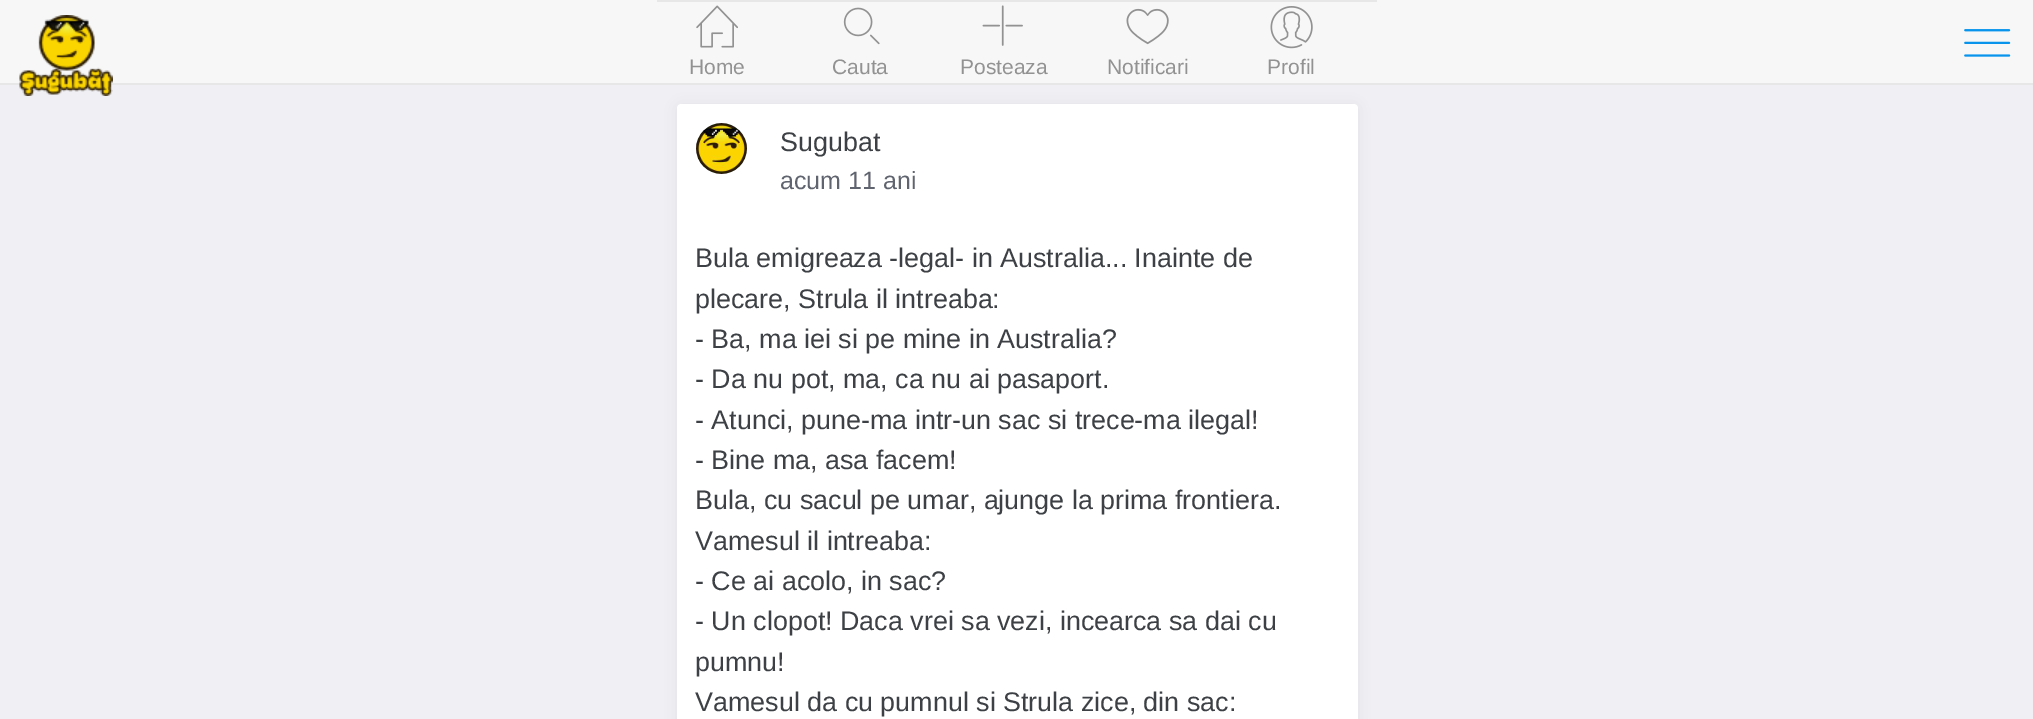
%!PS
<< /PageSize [2033 719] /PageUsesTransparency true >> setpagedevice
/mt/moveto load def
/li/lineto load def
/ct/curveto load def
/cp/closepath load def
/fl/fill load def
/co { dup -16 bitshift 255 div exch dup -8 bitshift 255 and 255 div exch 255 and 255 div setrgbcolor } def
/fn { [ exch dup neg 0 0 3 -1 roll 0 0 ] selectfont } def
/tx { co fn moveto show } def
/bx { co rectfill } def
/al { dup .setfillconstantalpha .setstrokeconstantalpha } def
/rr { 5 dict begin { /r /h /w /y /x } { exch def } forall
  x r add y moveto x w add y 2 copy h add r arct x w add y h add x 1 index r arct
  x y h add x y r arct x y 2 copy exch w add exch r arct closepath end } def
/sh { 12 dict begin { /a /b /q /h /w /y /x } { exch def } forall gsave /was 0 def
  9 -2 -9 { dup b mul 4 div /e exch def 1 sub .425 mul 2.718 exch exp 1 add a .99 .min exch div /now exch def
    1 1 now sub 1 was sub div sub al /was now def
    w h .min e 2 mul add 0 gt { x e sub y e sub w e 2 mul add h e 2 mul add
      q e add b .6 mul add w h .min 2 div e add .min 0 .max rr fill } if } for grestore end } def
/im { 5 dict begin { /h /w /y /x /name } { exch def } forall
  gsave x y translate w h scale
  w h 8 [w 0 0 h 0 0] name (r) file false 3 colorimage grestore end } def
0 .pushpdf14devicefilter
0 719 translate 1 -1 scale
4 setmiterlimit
0 0 2033 719 16#EFEFF4 bx
16#000000 co
677 105 681 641 4 7.5 .05 sh
0 0 2033 83 16#F7F7F8 bx
0 83 2033 2 16#E7E7E7 bx
(media/1.raw) 19 15 94 81 im
(media/2.raw) 1964 29 47 28 im
657 0 720 2 16#E7E7E7 bx
(media/3.raw) 696 5 42 43 im
(media/4.raw) 843 7 37 38 im
(media/5.raw) 982 5 41 41 im
(media/6.raw) 1126 8 43 37 im
(media/7.raw) 1270 6 43 43 im
16#FFFFFF co
681 104 mt 1354 104 li 1356 104 1358 106 1358 108 ct 1358 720 li 677 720 li 677 108 li 677 106 679 104 681 104 ct cp fl
(media/8.raw) 696 123 51 51 im
(Home) 689 74 /LiberationSans-Regular 21 16#929292 tx
(Cauta) 832 74 /LiberationSans-Regular 21 16#929292 tx
(Posteaza) 960 74 /LiberationSans-Regular 21 16#929292 tx
(Notificari) 1107 74 /LiberationSans-Regular 21 16#929292 tx
(Profil) 1267 74 /LiberationSans-Regular 21 16#929292 tx
(Sugubat) 780 151 /LiberationSans-Regular 26.9 16#3D4145 tx
(acum 11 ani) 780 189 /LiberationSans-Regular 25 16#5F646E tx
(Bula emigreaza -legal- in Australia... Inainte de) 695 267 /LiberationSans-Regular 26.9 16#3D4145 tx
(plecare, Strula il intreaba:) 695 308 /LiberationSans-Regular 26.9 16#3D4145 tx
(- Ba, ma iei si pe mine in Australia?) 695 348 /LiberationSans-Regular 26.9 16#3D4145 tx
(- Da nu pot, ma, ca nu ai pasaport.) 695 388 /LiberationSans-Regular 26.9 16#3D4145 tx
(- Atunci, pune-ma intr-un sac si trece-ma ilegal!) 695 429 /LiberationSans-Regular 26.9 16#3D4145 tx
(- Bine ma, asa facem!) 695 469 /LiberationSans-Regular 26.9 16#3D4145 tx
(Bula, cu sacul pe umar, ajunge la prima frontiera.) 695 509 /LiberationSans-Regular 26.9 16#3D4145 tx
(Vamesul il intreaba:) 695 550 /LiberationSans-Regular 26.9 16#3D4145 tx
(- Ce ai acolo, in sac?) 695 590 /LiberationSans-Regular 26.9 16#3D4145 tx
(- Un clopot! Daca vrei sa vezi, incearca sa dai cu) 695 630 /LiberationSans-Regular 26.9 16#3D4145 tx
(pumnu!) 695 671 /LiberationSans-Regular 26.9 16#3D4145 tx
(Vamesul da cu pumnul si Strula zice, din sac:) 695 711 /LiberationSans-Regular 26.9 16#3D4145 tx
.poppdf14devicefilter showpage
